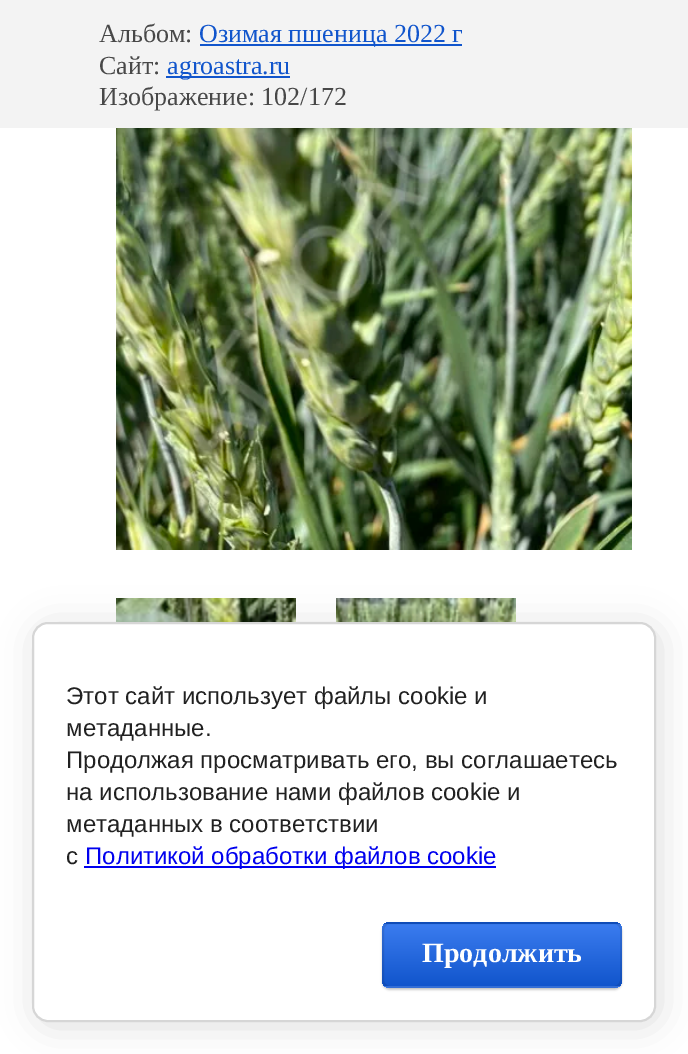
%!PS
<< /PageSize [688 1054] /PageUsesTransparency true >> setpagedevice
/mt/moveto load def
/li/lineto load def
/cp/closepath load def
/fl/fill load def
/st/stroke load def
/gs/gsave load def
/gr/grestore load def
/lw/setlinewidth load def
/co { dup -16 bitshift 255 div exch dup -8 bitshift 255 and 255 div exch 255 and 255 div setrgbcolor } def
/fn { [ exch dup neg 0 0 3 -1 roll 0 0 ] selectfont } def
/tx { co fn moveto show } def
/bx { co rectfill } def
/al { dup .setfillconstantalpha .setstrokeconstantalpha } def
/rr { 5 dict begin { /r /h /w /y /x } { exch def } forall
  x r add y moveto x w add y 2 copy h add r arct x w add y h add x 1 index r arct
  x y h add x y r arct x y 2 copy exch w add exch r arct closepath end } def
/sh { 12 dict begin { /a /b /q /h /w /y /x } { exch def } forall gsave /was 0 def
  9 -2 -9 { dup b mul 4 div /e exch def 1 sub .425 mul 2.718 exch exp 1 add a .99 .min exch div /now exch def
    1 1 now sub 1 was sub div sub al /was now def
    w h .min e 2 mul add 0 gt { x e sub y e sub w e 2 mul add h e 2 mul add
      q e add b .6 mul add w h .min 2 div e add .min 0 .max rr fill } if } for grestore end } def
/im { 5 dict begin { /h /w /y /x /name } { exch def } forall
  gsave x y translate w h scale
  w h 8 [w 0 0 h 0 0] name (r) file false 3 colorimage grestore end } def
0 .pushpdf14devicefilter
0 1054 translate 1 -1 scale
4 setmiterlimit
0 0 688 1054 16#FFFFFF bx
0 0 688 128 16#F3F3F3 bx
200 44 262 2 16#1155CC bx
166 76 124 2 16#1155CC bx
(media/1.raw) 116 128 516 422 im
(media/2.raw) 116 598 180 24 im
(media/3.raw) 336 598 180 24 im
16#000000 co
36 626 624 400 16 18 .14 sh
16#FFFFFF co
33 623 622 398 15 rr gs fl gr
16#D6D6D6 co
2 lw
st
84 866 412 2 16#0000EE bx
16#000000 co
382 924 240 66 8 1 .2 sh
gs
382 922 240 66 8 rr clip newpath
gs 382 922 mt 622 922 li 622 924 li 382 924 li cp clip newpath
<< /ShadingType 2 /ColorSpace /DeviceRGB /Coords [502 862 502 924] /Extend [true true] /Function << /FunctionType 2 /Domain [0 1] /C0 [.231 .486 .937] /C1 [.067 .333 .8] /N 1 >> >> shfill gr
gs 382 924 mt 622 924 li 622 986 li 382 986 li cp clip newpath
<< /ShadingType 2 /ColorSpace /DeviceRGB /Coords [502 924 502 986] /Extend [true true] /Function << /FunctionType 2 /Domain [0 1] /C0 [.231 .486 .937] /C1 [.067 .333 .8] /N 1 >> >> shfill gr
gs 382 986 mt 622 986 li 622 988 li 382 988 li cp clip newpath
<< /ShadingType 2 /ColorSpace /DeviceRGB /Coords [502 986 502 1048] /Extend [true true] /Function << /FunctionType 2 /Domain [0 1] /C0 [.231 .486 .937] /C1 [.067 .333 .8] /N 1 >> >> shfill gr
gr
0.1 al
383 923 238 64 7 rr st
1 al
(Альбом:) 99 42 /LiberationSerif-Regular 26 16#484848 tx
(Озимая пшеница 2022 г) 199 42 /LiberationSerif-Regular 26 16#1155CC tx
(Сайт:) 99 74 /LiberationSerif-Regular 26 16#484848 tx
(agroastra.ru) 167 74 /LiberationSerif-Regular 26 16#1155CC tx
(Изображение: 102/172) 99 105 /LiberationSerif-Regular 26 16#484848 tx
(Этот сайт использует файлы cookie и) 66 704 /LiberationSans-Regular 24 16#212121 tx
(метаданные.) 66 736 /LiberationSans-Regular 24 16#212121 tx
(Продолжая просматривать его, вы соглашаетесь) 66 768 /LiberationSans-Regular 24 16#212121 tx
(на использование нами файлов cookie и) 66 800 /LiberationSans-Regular 24 16#212121 tx
(метаданных в соответствии) 66 832 /LiberationSans-Regular 24 16#212121 tx
(с) 66 864 /LiberationSans-Regular 24 16#212121 tx
(Политикой обработки файлов cookie) 85 864 /LiberationSans-Regular 24 16#0000EE tx
(Продолжить) 422 962 /LiberationSerif-Bold 28 16#FFFFFF tx
.poppdf14devicefilter showpage
